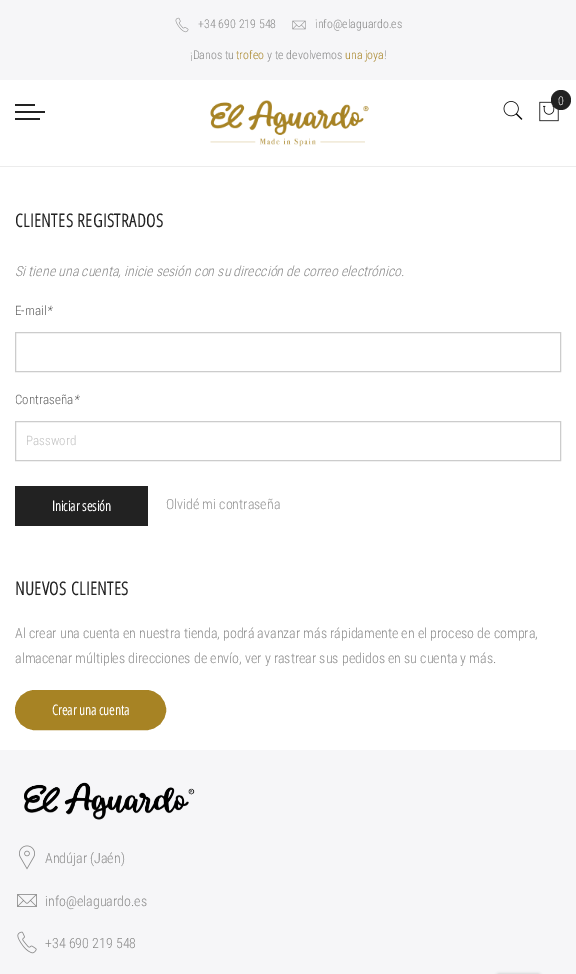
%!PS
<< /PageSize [576 974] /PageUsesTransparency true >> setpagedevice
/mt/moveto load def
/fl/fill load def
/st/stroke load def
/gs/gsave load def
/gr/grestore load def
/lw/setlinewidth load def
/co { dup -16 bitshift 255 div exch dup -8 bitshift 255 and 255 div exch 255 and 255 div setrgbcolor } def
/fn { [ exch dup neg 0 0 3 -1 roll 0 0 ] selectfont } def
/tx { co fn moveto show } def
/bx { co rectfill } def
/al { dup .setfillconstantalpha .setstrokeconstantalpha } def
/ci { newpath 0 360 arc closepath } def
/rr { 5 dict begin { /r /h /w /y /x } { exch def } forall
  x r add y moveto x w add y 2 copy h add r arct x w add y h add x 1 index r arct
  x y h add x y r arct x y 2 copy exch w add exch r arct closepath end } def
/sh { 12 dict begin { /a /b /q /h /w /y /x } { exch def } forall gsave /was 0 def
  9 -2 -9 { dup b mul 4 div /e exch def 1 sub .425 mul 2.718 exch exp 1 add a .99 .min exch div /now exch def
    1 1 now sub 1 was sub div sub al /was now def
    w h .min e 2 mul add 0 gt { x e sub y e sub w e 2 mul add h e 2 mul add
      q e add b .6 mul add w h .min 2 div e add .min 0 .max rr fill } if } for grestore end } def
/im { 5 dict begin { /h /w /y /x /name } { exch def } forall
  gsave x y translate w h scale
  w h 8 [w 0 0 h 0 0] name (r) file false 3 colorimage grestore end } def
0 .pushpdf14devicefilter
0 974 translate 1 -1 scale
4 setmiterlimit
0 0 576 974 16#FFFFFF bx
0 0 576 80 16#F6F6F8 bx
(media/1.raw) 175 17 14 16 im
(media/2.raw) 292 20 14 10 im
15 104 20 2 16#222222 bx
15 111 30 2 16#222222 bx
15 118 25 2 16#222222 bx
(media/3.raw) 210 100 159 47 im
(media/4.raw) 503 101 20 19 im
(media/5.raw) 539 101 20 21 im
561 100 10 ci fl
0 166 576 1 16#ECECEC bx
16#CCCCCC co
15.5 332.5 545 39 rectstroke
15.5 421.5 545 39 rectstroke
15 486 133 40 16#222222 bx
16#A78324 co
16 691 149 38 19 rr gs fl gr
2 lw
st
0 750 576 224 16#F6F6F8 bx
(media/6.raw) 24 782 171 38 im
(media/7.raw) 19 845 16 25 im
(media/8.raw) 17 894 20 13 im
(media/9.raw) 17 931 20 23 im
16#000000 co
496 974 45 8 3 1.5 .2 sh
(+34 690 219 548) 198 28 /RobotoCondensed-Light 12 16#878787 tx
(info@elaguardo.es) 315 28 /RobotoCondensed-Light 12 16#878787 tx
(¡Danos tu) 190 59 /RobotoCondensed-Light 12 16#878787 tx
(trofeo) 236 59 /RobotoCondensed-Light 12 16#A78324 tx
(y te devolvemos) 267 59 /RobotoCondensed-Light 12 16#878787 tx
(una joya) 345 59 /RobotoCondensed-Light 12 16#A78324 tx
(!) 384 59 /RobotoCondensed-Light 12 16#878787 tx
(0) 558 105 /RobotoCondensed-Light 12 16#FFFFFF tx
/OpenSansCondensed-Bold 18 fn
16#222222 co
15 227 mt .5 0 (CLIENTES REGISTRADOS) ashow
(Si tiene una cuenta, inicie sesión con su dirección de correo electrónico.) 15 276 /RobotoCondensed-LightItalic 14 16#878787 tx
(E-mail) 15 315 /RobotoCondensed-Light 13 16#5F5F5F tx
(*) 46 315 /RobotoCondensed-LightItalic 13 16#5F5F5F tx
(Contraseña) 15 404 /RobotoCondensed-Light 13 16#5F5F5F tx
(*) 73 404 /RobotoCondensed-LightItalic 13 16#5F5F5F tx
(Password) 26 445 /RobotoCondensed-Light 13 16#C1C1C1 tx
(Iniciar sesión) 52 511 /OpenSansCondensed-Bold 14 16#FFFFFF tx
(Olvidé mi contraseña) 166 509 /RobotoCondensed-Light 14 16#8E8E8E tx
/OpenSansCondensed-Bold 18 fn
16#222222 co
15 595 mt .5 0 (NUEVOS CLIENTES) ashow
(Al crear una cuenta en nuestra tienda, podrá avanzar más rápidamente en el proceso de compra,) 15 638 /RobotoCondensed-Light 14 16#878787 tx
(almacenar múltiples direcciones de envío, ver y rastrear sus pedidos en su cuenta y más.) 15 663 /RobotoCondensed-Light 14 16#878787 tx
(Crear una cuenta) 52 715 /OpenSansCondensed-Bold 14 16#FFFFFF tx
(Andújar \(Jaén\)) 45 863 /RobotoCondensed-Light 14 16#878787 tx
(info@elaguardo.es) 45 906 /RobotoCondensed-Light 14 16#878787 tx
(+34 690 219 548) 45 948 /RobotoCondensed-Light 14 16#878787 tx
.poppdf14devicefilter showpage
